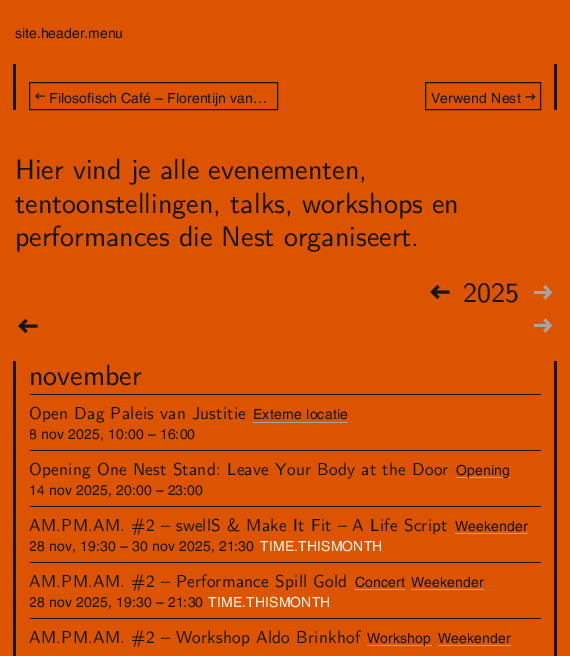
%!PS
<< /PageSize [570 656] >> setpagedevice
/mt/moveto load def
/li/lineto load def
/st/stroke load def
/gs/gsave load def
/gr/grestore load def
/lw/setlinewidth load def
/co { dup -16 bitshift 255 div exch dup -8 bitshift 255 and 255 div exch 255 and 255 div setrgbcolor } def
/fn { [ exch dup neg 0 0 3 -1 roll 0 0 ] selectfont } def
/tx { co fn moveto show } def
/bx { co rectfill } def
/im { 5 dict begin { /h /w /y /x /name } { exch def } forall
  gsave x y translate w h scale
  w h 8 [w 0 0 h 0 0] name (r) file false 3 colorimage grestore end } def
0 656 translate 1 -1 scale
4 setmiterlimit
0 0 570 656 16#DC5400 bx
13 64 3 46 16#161616 bx
554 64 3 46 16#161616 bx
29.5 82.5 248 27 rectstroke
(media/1.raw) 35 92 10 8 im
425.5 82.5 115 27 rectstroke
(media/2.raw) 525 93 11 8 im
3 lw
432.5 292 mt 449.5 292 li 438.5 298 mt 432.5 292 li 438.5 286 li st
534 291 16 3 16#A5A5A5 bx
544.5 286 mt 550 292.5 li 544.5 298.5 li st
16#161616 co
20.5 326 mt 37.5 326 li 26.5 332 mt 20.5 326 li 26.5 320 li st
534 324 16 3 16#A5A5A5 bx
544.5 319.5 mt 550 325.5 li 544.5 331.5 li st
13 361 3 295 16#161616 bx
30 394 511 1 16#161616 bx
554 361 3 295 16#161616 bx
30 450 511 1 16#161616 bx
253 422 95 1 16#A5A5A5 bx
30 506 511 1 16#161616 bx
456 477 54 1 16#A5A5A5 bx
30 562 511 1 16#161616 bx
455 533 73 1 16#A5A5A5 bx
30 618 511 1 16#161616 bx
355 589 50 1 16#A5A5A5 bx
411 589 73 1 16#A5A5A5 bx
367 645 65 1 16#A5A5A5 bx
438 645 73 1 16#A5A5A5 bx
(site.header.menu) 15 38 /Helvetica-Regular 14 16#161616 tx
49 103 mt .15 0 (Filosofisch Café – Florentijn van…) ashow
431 103 mt .15 0 (Verwend Nest) ashow
(Hier vind je alle evenementen,) 15 179 /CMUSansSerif-Medium 28 16#161616 tx
(tentoonstellingen, talks, workshops en) 15 213 /CMUSansSerif-Medium 28 16#161616 tx
(performances die Nest organiseert.) 15 246 /CMUSansSerif-Medium 28 16#161616 tx
(2025) 463 302 /CMUSansSerif-Medium 28 16#161616 tx
(november) 29 385 /CMUSansSerif-Medium 28 16#161616 tx
/CMUSansSerif-Medium 17.3 fn
29 419 mt .25 0 (Open Dag Paleis van Justitie) ashow
/Helvetica-Regular 14 fn
253 419 mt .15 0 (Externe locatie) ashow
gs
30 403 511 40 rectclip
29 439 mt .15 0 (8) ashow
gr
41 439 mt .15 0 (nov 2025, 10:00 – 16:00) ashow
/CMUSansSerif-Medium 17.3 fn
29 475 mt .25 0 (Opening One Nest Stand: Leave Your Body at the Door) ashow
/Helvetica-Regular 14 fn
456 475 mt .15 0 (Opening) ashow
29 495 mt .15 0 (14 nov 2025, 20:00 – 23:00) ashow
/CMUSansSerif-Medium 17.3 fn
29 531 mt .25 0 (AM.PM.AM. #2 – swellS & Make It Fit – A Life Script) ashow
/Helvetica-Regular 14 fn
455 531 mt .15 0 (Weekender) ashow
gs
30 515 511 40 rectclip
29 551 mt .15 0 (28) ashow
gr
49 551 mt .15 0 (nov, 19:30 – 30 nov 2025, 21:30) ashow
16#F2F1E7 co
260 551 mt .15 0 (TIME.THISMONTH) ashow
/CMUSansSerif-Medium 17.3 fn
16#161616 co
29 587 mt .25 0 (AM.PM.AM. #2 – Performance Spill Gold) ashow
/Helvetica-Regular 14 fn
355 587 mt .15 0 (Concert) ashow
411 587 mt .15 0 (Weekender) ashow
gs
30 571 511 40 rectclip
29 607 mt .15 0 (28) ashow
gr
49 607 mt .15 0 (nov 2025, 19:30 – 21:30) ashow
16#F2F1E7 co
208 607 mt .15 0 (TIME.THISMONTH) ashow
/CMUSansSerif-Medium 17.3 fn
16#161616 co
29 643 mt .25 0 (AM.PM.AM. #2 – Workshop Aldo Brinkhof) ashow
/Helvetica-Regular 14 fn
367 643 mt .15 0 (Workshop) ashow
438 643 mt .15 0 (Weekender) ashow
showpage
